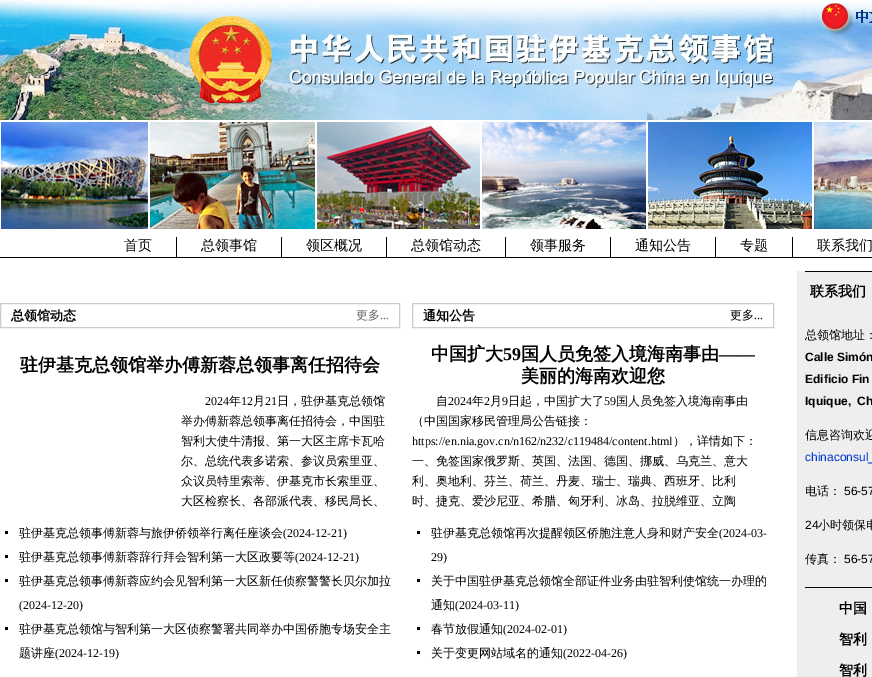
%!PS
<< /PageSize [872 677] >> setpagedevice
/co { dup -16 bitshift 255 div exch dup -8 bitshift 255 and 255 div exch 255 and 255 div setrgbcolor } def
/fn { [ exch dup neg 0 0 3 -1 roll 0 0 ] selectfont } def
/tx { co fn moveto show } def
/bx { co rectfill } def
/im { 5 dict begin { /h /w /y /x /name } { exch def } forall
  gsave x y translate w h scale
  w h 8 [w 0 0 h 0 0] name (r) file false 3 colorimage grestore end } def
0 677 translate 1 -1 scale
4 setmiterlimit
0 0 872 677 16#FFFFFF bx
(media/1.raw) 0 0 872 120 im
(media/2.raw) 1 122 147 107 im
(media/3.raw) 150 122 165 107 im
(media/4.raw) 317 122 163 107 im
(media/5.raw) 482 122 164 107 im
(media/6.raw) 648 122 164 107 im
(media/7.raw) 814 122 58 107 im
0 257 872 1 16#000000 bx
176 237 1 20 16#000000 bx
281 237 1 20 16#000000 bx
386 237 1 20 16#000000 bx
505 237 1 20 16#000000 bx
610 237 1 20 16#000000 bx
715 237 1 20 16#000000 bx
792 237 1 20 16#000000 bx
16#CCCCCC co
.5 303.5 399 24 rectstroke
5 531 3 3 16#000000 bx
5 555 3 3 16#000000 bx
5 579 3 3 16#000000 bx
5 627 3 3 16#000000 bx
16#CCCCCC co
412.5 303.5 361 24 rectstroke
417 531 3 3 16#000000 bx
417 579 3 3 16#000000 bx
417 627 3 3 16#000000 bx
417 651 3 3 16#000000 bx
797 271 75 406 16#EEEEEE bx
805 271 67 1 16#000000 bx
805 587 67 1 16#000000 bx
(首页) 124 250 /WenQuanYiZenHei-Medium 14 16#000000 tx
(总领事馆) 201 250 /WenQuanYiZenHei-Medium 14 16#000000 tx
(领区概况) 306 250 /WenQuanYiZenHei-Medium 14 16#000000 tx
(总领馆动态) 411 250 /WenQuanYiZenHei-Medium 14 16#000000 tx
(领事服务) 530 250 /WenQuanYiZenHei-Medium 14 16#000000 tx
(通知公告) 635 250 /WenQuanYiZenHei-Medium 14 16#000000 tx
(专题) 740 250 /WenQuanYiZenHei-Medium 14 16#000000 tx
(联系我们) 817 250 /WenQuanYiZenHei-Medium 14 16#000000 tx
(总领馆动态) 11 320 /WenQuanYiZenHei-Bold 13 16#000000 tx
(更多) 356 319 /WenQuanYiZenHei-Medium 12 16#666666 tx
(...) 380 319 /LiberationSerif-Regular 12 16#666666 tx
(驻伊基克总领馆举办傅新蓉总领事离任招待会) 20 371 /WenQuanYiZenHei-Bold 18 16#000000 tx
(2024) 205 405 /LiberationSerif-Regular 12 16#000000 tx
(年) 229 405 /WenQuanYiZenHei-Medium 12 16#000000 tx
(12) 241 405 /LiberationSerif-Regular 12 16#000000 tx
(月) 253 405 /WenQuanYiZenHei-Medium 12 16#000000 tx
(21) 265 405 /LiberationSerif-Regular 12 16#000000 tx
(日，驻伊基克总领馆) 277 405 /WenQuanYiZenHei-Medium 12 16#000000 tx
(举办傅新蓉总领事离任招待会，中国驻) 181 425 /WenQuanYiZenHei-Medium 12 16#000000 tx
(智利大使牛清报、第一大区主席卡瓦哈) 181 445 /WenQuanYiZenHei-Medium 12 16#000000 tx
(尔、总统代表多诺索、参议员索里亚、) 181 465 /WenQuanYiZenHei-Medium 12 16#000000 tx
(众议员特里索蒂、伊基克市长索里亚、) 181 485 /WenQuanYiZenHei-Medium 12 16#000000 tx
(大区检察长、各部派代表、移民局长、) 181 505 /WenQuanYiZenHei-Medium 12 16#000000 tx
(驻伊基克总领事傅新蓉与旅伊侨领举行离任座谈会) 19 537 /WenQuanYiZenHei-Medium 12 16#000000 tx
(\(2024-12-21\)) 283 537 /LiberationSerif-Regular 12 16#000000 tx
(驻伊基克总领事傅新蓉辞行拜会智利第一大区政要等) 19 561 /WenQuanYiZenHei-Medium 12 16#000000 tx
(\(2024-12-21\)) 295 561 /LiberationSerif-Regular 12 16#000000 tx
(驻伊基克总领事傅新蓉应约会见智利第一大区新任侦察警警长贝尔加拉) 19 585 /WenQuanYiZenHei-Medium 12 16#000000 tx
(\(2024-12-20\)) 19 609 /LiberationSerif-Regular 12 16#000000 tx
(驻伊基克总领馆与智利第一大区侦察警署共同举办中国侨胞专场安全主) 19 633 /WenQuanYiZenHei-Medium 12 16#000000 tx
(题讲座) 19 657 /WenQuanYiZenHei-Medium 12 16#000000 tx
(\(2024-12-19\)) 55 657 /LiberationSerif-Regular 12 16#000000 tx
(通知公告) 423 320 /WenQuanYiZenHei-Bold 13 16#000000 tx
(更多) 730 319 /WenQuanYiZenHei-Medium 12 16#000000 tx
(...) 754 319 /LiberationSerif-Regular 12 16#000000 tx
(中国扩大) 431 360 /WenQuanYiZenHei-Bold 18 16#000000 tx
(59) 503 360 /LiberationSerif-Bold 18 16#000000 tx
(国人员免签入境海南事由) 521 360 /WenQuanYiZenHei-Bold 18 16#000000 tx
(——) 719 360 /LiberationSerif-Bold 18 16#000000 tx
(美丽的海南欢迎您) 521 382 /WenQuanYiZenHei-Bold 18 16#000000 tx
(自) 436 405 /WenQuanYiZenHei-Medium 12 16#000000 tx
(2024) 448 405 /LiberationSerif-Regular 12 16#000000 tx
(年) 472 405 /WenQuanYiZenHei-Medium 12 16#000000 tx
(2) 484 405 /LiberationSerif-Regular 12 16#000000 tx
(月) 490 405 /WenQuanYiZenHei-Medium 12 16#000000 tx
(9) 502 405 /LiberationSerif-Regular 12 16#000000 tx
(日起，中国扩大了) 508 405 /WenQuanYiZenHei-Medium 12 16#000000 tx
(59) 604 405 /LiberationSerif-Regular 12 16#000000 tx
(国人员免签入境海南事由) 616 405 /WenQuanYiZenHei-Medium 12 16#000000 tx
(（中国国家移民管理局公告链接：) 412 425 /WenQuanYiZenHei-Medium 12 16#000000 tx
(https://en.nia.gov.cn/n162/n232/c119484/content.html) 412 445 /LiberationSerif-Regular 12 16#000000 tx
(），详情如下：) 673 445 /WenQuanYiZenHei-Medium 12 16#000000 tx
(一、免签国家俄罗斯、英国、法国、德国、挪威、乌克兰、意大) 412 465 /WenQuanYiZenHei-Medium 12 16#000000 tx
(利、奥地利、芬兰、荷兰、丹麦、瑞士、瑞典、西班牙、比利) 412 485 /WenQuanYiZenHei-Medium 12 16#000000 tx
(时、捷克、爱沙尼亚、希腊、匈牙利、冰岛、拉脱维亚、立陶) 412 505 /WenQuanYiZenHei-Medium 12 16#000000 tx
(驻伊基克总领馆再次提醒领区侨胞注意人身和财产安全) 431 537 /WenQuanYiZenHei-Medium 12 16#000000 tx
(\(2024-03-) 719 537 /LiberationSerif-Regular 12 16#000000 tx
(29\)) 431 561 /LiberationSerif-Regular 12 16#000000 tx
(关于中国驻伊基克总领馆全部证件业务由驻智利使馆统一办理的) 431 585 /WenQuanYiZenHei-Medium 12 16#000000 tx
(通知) 431 609 /WenQuanYiZenHei-Medium 12 16#000000 tx
(\(2024-03-11\)) 455 609 /LiberationSerif-Regular 12 16#000000 tx
(春节放假通知) 431 633 /WenQuanYiZenHei-Medium 12 16#000000 tx
(\(2024-02-01\)) 503 633 /LiberationSerif-Regular 12 16#000000 tx
(关于变更网站域名的通知) 431 657 /WenQuanYiZenHei-Medium 12 16#000000 tx
(\(2022-04-26\)) 563 657 /LiberationSerif-Regular 12 16#000000 tx
(联系我们) 810 296 /WenQuanYiZenHei-Bold 14 16#000000 tx
(总领馆地址：) 805 339 /WenQuanYiZenHei-Medium 12 16#000000 tx
(Calle Simón) 805 361 /LiberationSans-Bold 12 16#000000 tx
(Edificio Fin) 805 383 /LiberationSans-Bold 12 16#000000 tx
(Iquique, Ch) 805 405 /LiberationSans-Bold 12 16#000000 tx
(信息咨询欢迎) 805 439 /WenQuanYiZenHei-Medium 12 16#000000 tx
(chinaconsul_) 805 461 /LiberationSans-Regular 12 16#0035CD tx
(电话：) 805 495 /WenQuanYiZenHei-Medium 12 16#000000 tx
(56-57) 844 495 /LiberationSans-Regular 12 16#000000 tx
(24) 805 529 /LiberationSans-Regular 12 16#000000 tx
(小时领保电) 818 529 /WenQuanYiZenHei-Medium 12 16#000000 tx
(传真：) 805 563 /WenQuanYiZenHei-Medium 12 16#000000 tx
(56-57) 844 563 /LiberationSans-Regular 12 16#000000 tx
(中国) 839 613 /WenQuanYiZenHei-Bold 14 16#000000 tx
(智利) 839 644 /WenQuanYiZenHei-Bold 14 16#000000 tx
(智利) 839 675 /WenQuanYiZenHei-Bold 14 16#000000 tx
showpage
